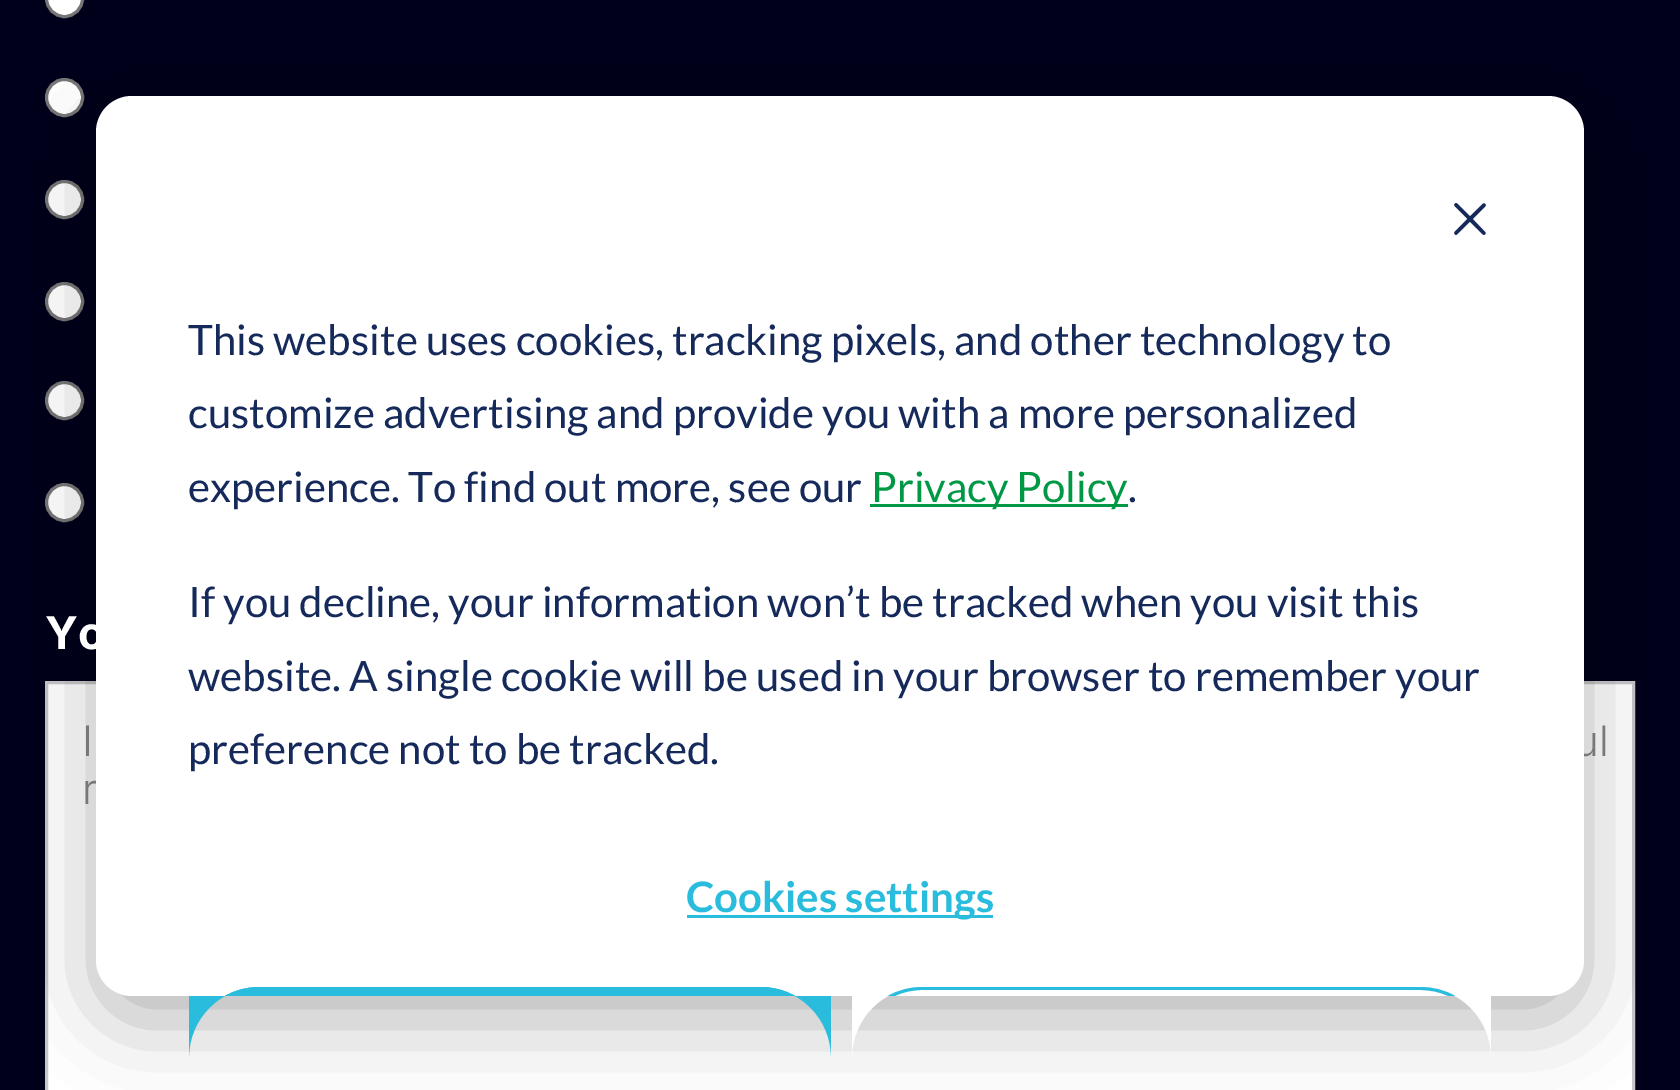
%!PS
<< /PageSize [1680 1090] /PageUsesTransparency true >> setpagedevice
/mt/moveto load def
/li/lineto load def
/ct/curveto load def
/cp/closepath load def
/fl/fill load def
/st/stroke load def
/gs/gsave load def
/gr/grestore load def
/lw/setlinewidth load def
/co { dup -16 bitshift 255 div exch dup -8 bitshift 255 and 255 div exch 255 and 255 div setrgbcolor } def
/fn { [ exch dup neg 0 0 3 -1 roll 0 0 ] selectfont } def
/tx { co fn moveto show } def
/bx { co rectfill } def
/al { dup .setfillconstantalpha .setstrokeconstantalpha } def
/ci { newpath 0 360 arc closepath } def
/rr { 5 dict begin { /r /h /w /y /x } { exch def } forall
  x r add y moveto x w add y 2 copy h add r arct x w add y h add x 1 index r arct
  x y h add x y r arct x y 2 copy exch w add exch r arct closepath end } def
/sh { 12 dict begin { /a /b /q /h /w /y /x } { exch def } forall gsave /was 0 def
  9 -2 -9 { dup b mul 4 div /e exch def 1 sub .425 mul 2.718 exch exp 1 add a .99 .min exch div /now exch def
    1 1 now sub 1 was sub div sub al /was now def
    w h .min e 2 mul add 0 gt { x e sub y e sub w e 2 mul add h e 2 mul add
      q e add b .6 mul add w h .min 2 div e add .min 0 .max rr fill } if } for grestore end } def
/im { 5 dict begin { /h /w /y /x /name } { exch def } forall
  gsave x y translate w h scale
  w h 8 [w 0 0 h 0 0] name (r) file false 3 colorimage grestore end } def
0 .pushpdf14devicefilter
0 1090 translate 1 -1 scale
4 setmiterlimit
0 0 1680 1090 16#00001A bx
16#FFFFFF co
64.5 -1.5 18 ci gs fl gr
16#767676 co
3 lw
st
16#FFFFFF co
64.5 97.5 18 ci gs fl gr
16#767676 co
st
16#FFFFFF co
64.5 199.5 18 ci gs fl gr
16#767676 co
st
16#FFFFFF co
64.5 301.5 18 ci gs fl gr
16#767676 co
st
16#FFFFFF co
64.5 400.5 18 ci gs fl gr
16#767676 co
st
16#FFFFFF co
64.5 502.5 18 ci gs fl gr
16#767676 co
st
16#FFFFFF co
46.5 682.5 mt 1633.5 682.5 li 1633.5 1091.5 li 46.5 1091.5 li cp gs fl gr
16#C8C7C9 co
st
16#000000 co
96 120 1488 900 36 42 .28 sh
(Yo) 45 649 /Inter-Bold 45 16#FFFFFF tx
/Inter-Light 42 fn
16#78767A co
82 756 mt 1 0 32 (I) widthshow
(ul) 1574 756 /Inter-Light 42 16#78767A tx
16#FFFFFF co
96 96 1488 900 36 rr fl
(media/1.raw) 1454 203 32 32 im
922.5 987 mt 1420.5 987 li 1459.5 987 1491 1018.5 1491 1057.5 ct 1491 996 li 852 996 li 852 1057.5 li 852 1018.5 883.5 987 922.5 987 ct cp fl
16#2ABCDD co
922 987 mt 910 987 898 990 888 996 ct 895 996 li 903 992 913 990 922 990 ct 1420 990 li 1430 990 1440 992 1448 996 ct 1455 996 li 1445 990 1433 987 1420 987 ct cp fl
259.5 987 mt 760.5 987 li 799.5 987 831 1018.5 831 1057.5 ct 831 996 li 189 996 li 189 1057.5 li 189 1018.5 220.5 987 259.5 987 ct cp fl
260 987 mt 247 987 235 990 225 996 ct 232 996 li 240 992 250 990 260 990 ct 760 990 li 770 990 780 992 788 996 ct 795 996 li 785 990 773 987 760 987 ct cp fl
687 915 306 3 16#2ABCDD bx
(Cookies settings) 686 912 /Lato-Bold 42 16#2ABCDD tx
(preference not to be tracked.) 188 764 /Lato-Regular 42 16#15295A tx
(website. A single cookie will be used in your browser to remember your) 188 691 /Lato-Regular 42 16#15295A tx
(If you decline, your information won’t be tracked when you visit this) 188 617 /Lato-Regular 42 16#15295A tx
(.) 1128 502 /Lato-Regular 42 16#15295A tx
870 504 258 3 16#009845 bx
(Privacy Policy) 871 502 /Lato-Regular 42 16#009845 tx
(experience. To find out more, see our) 188 502 /Lato-Regular 42 16#15295A tx
(customize advertising and provide you with a more personalized) 188 428 /Lato-Regular 42 16#15295A tx
(This website uses cookies, tracking pixels, and other technology to) 188 355 /Lato-Regular 42 16#15295A tx
(r) 82 804 /Inter-Light 42 16#78767A tx
.poppdf14devicefilter showpage
